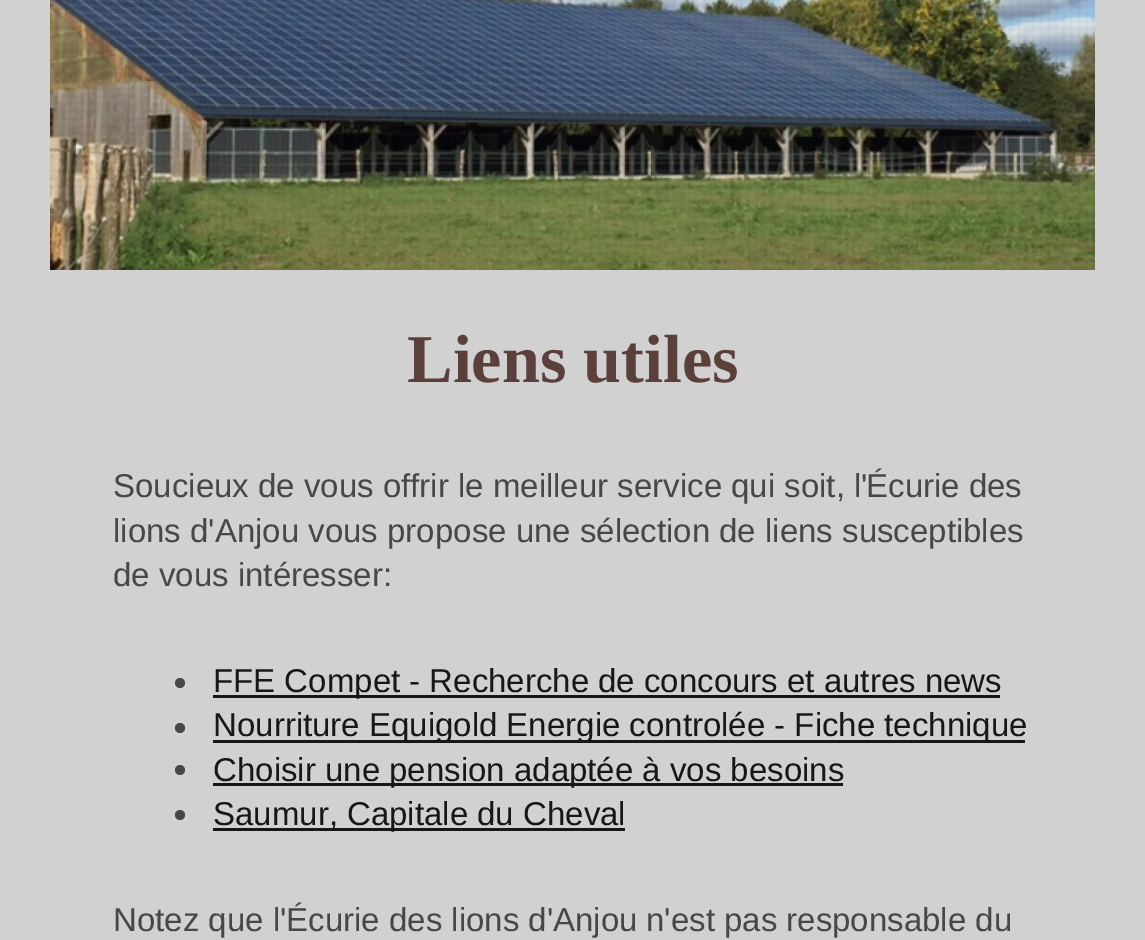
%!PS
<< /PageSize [1145 940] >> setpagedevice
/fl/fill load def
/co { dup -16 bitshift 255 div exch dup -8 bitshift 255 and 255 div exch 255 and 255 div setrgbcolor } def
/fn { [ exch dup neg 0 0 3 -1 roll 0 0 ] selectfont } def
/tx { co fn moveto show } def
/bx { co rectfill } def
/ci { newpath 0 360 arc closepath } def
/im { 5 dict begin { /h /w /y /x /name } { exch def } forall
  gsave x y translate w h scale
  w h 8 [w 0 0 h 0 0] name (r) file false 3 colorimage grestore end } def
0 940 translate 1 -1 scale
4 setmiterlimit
0 0 1145 940 16#D2D1D1 bx
(media/1.raw) 50 0 1045 270 im
(media/2.raw) 50 0 1045 270 im
16#484747 co
180 683 5 ci fl
213 695 787 3 16#171717 bx
16#484747 co
180 728 5 ci fl
213 740 812 3 16#171717 bx
16#484747 co
180 770 5 ci fl
213 783 630 3 16#171717 bx
16#484747 co
180 815 5 ci fl
213 828 412 3 16#171717 bx
(Liens utiles) 407 382 /LiberationSerif-Bold 68.25 16#5B3F3B tx
(Soucieux de vous offrir le meilleur service qui soit, l') 113 497 /LiberationSans-Regular 33 16#484747 tx
(Écurie des) 866 497 /LiberationSans-Regular 33 16#484747 tx
(lions d'Anjou vous propose une sélection de liens susceptibles) 113 542 /LiberationSans-Regular 33 16#484747 tx
(de vous intéresser:) 113 586 /LiberationSans-Regular 33 16#484747 tx
(FFE Compet - Recherche de concours et autres news) 213 692 /LiberationSans-Regular 33 16#171717 tx
(Nourriture Equigold Energie controlée - Fiche technique) 213 736 /LiberationSans-Regular 33 16#171717 tx
(Choisir une pension adaptée à vos besoins) 213 781 /LiberationSans-Regular 33 16#171717 tx
(Saumur, Capitale du Cheval) 213 825 /LiberationSans-Regular 33 16#171717 tx
(Notez que l'Écurie des lions d'Anjou) 113 931 /LiberationSans-Regular 33 16#484747 tx
(n'est pas responsable du) 646 931 /LiberationSans-Regular 33 16#484747 tx
showpage
